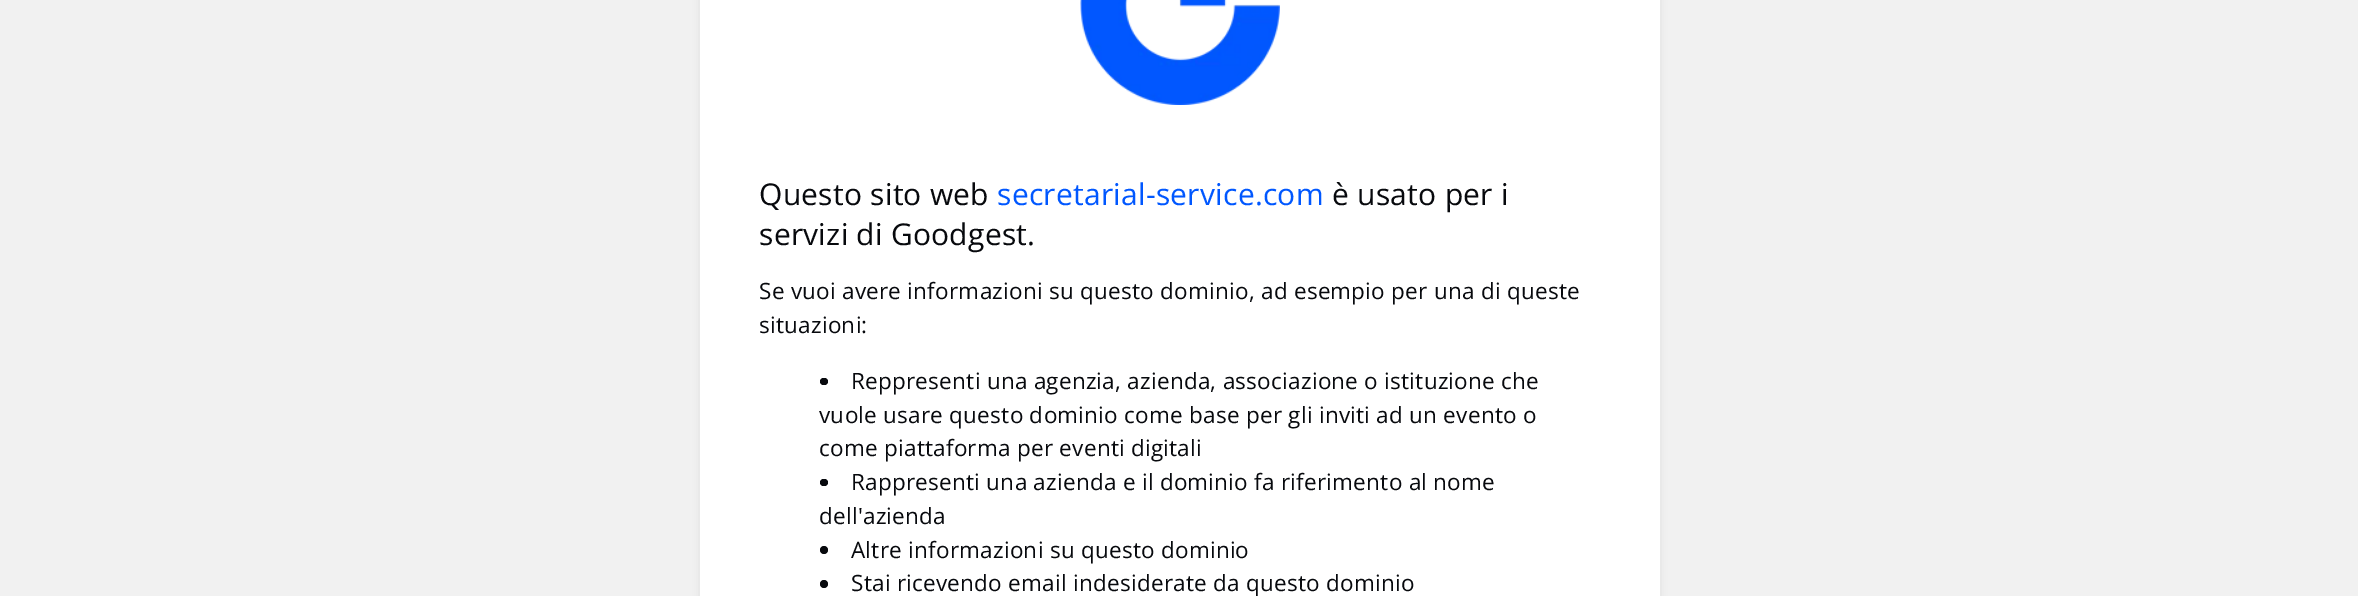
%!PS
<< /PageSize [2358 596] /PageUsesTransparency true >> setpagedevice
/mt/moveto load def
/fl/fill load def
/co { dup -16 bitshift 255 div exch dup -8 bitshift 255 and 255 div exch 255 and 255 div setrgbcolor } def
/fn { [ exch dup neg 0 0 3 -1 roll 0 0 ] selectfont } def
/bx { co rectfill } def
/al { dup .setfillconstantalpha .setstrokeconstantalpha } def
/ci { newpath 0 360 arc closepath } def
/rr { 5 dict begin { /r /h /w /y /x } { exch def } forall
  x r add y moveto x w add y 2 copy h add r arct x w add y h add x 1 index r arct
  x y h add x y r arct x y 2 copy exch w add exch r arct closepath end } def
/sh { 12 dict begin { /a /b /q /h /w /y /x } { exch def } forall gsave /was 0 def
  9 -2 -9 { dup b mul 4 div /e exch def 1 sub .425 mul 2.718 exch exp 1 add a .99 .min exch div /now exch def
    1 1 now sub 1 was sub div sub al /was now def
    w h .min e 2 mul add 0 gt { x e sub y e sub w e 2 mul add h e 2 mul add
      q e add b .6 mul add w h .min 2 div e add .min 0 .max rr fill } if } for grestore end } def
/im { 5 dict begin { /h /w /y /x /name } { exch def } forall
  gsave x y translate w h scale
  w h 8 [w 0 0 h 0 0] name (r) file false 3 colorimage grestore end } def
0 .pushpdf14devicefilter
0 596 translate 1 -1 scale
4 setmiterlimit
0 0 2358 596 16#F1F1F1 bx
16#000000 co
701 -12 958 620 0 4 .1 sh
700 0 960 596 16#FFFFFF bx
(media/1.raw) 1080 0 200 105 im
16#07090D co
820 378 8 7 3.5 rr fl
820 479 8 7 3.5 rr fl
824 550 4 ci fl
824 584 4 ci fl
/OpenSans-Regular 30 fn
759 205 mt .25 0 (Questo sito web) ashow
16#0057FF co
997 205 mt .25 0 (secretarial-service.com) ashow
16#07090D co
1332 205 mt .25 0 (è usato per i) ashow
759 245 mt .25 0 (servizi di Goodgest.) ashow
/OpenSans-Regular 22.5 fn
759 299 mt .25 0 (Se vuoi avere informazioni su questo dominio, ad esempio per una di queste) ashow
759 333 mt .25 0 (situazioni:) ashow
851 389 mt .25 0 (Reppresenti una agenzia, azienda, associazione o istituzione che) ashow
819 423 mt .25 0 (vuole usare questo dominio come base per gli inviti ad un evento o) ashow
819 456 mt .25 0 (come piattaforma per eventi digitali) ashow
851 490 mt .25 0 (Rappresenti una azienda e il dominio fa riferimento al nome) ashow
819 524 mt .25 0 (dell'azienda) ashow
851 558 mt .25 0 (Altre informazioni su questo dominio) ashow
851 591 mt .25 0 (Stai ricevendo email indesiderate da questo dominio) ashow
.poppdf14devicefilter showpage
